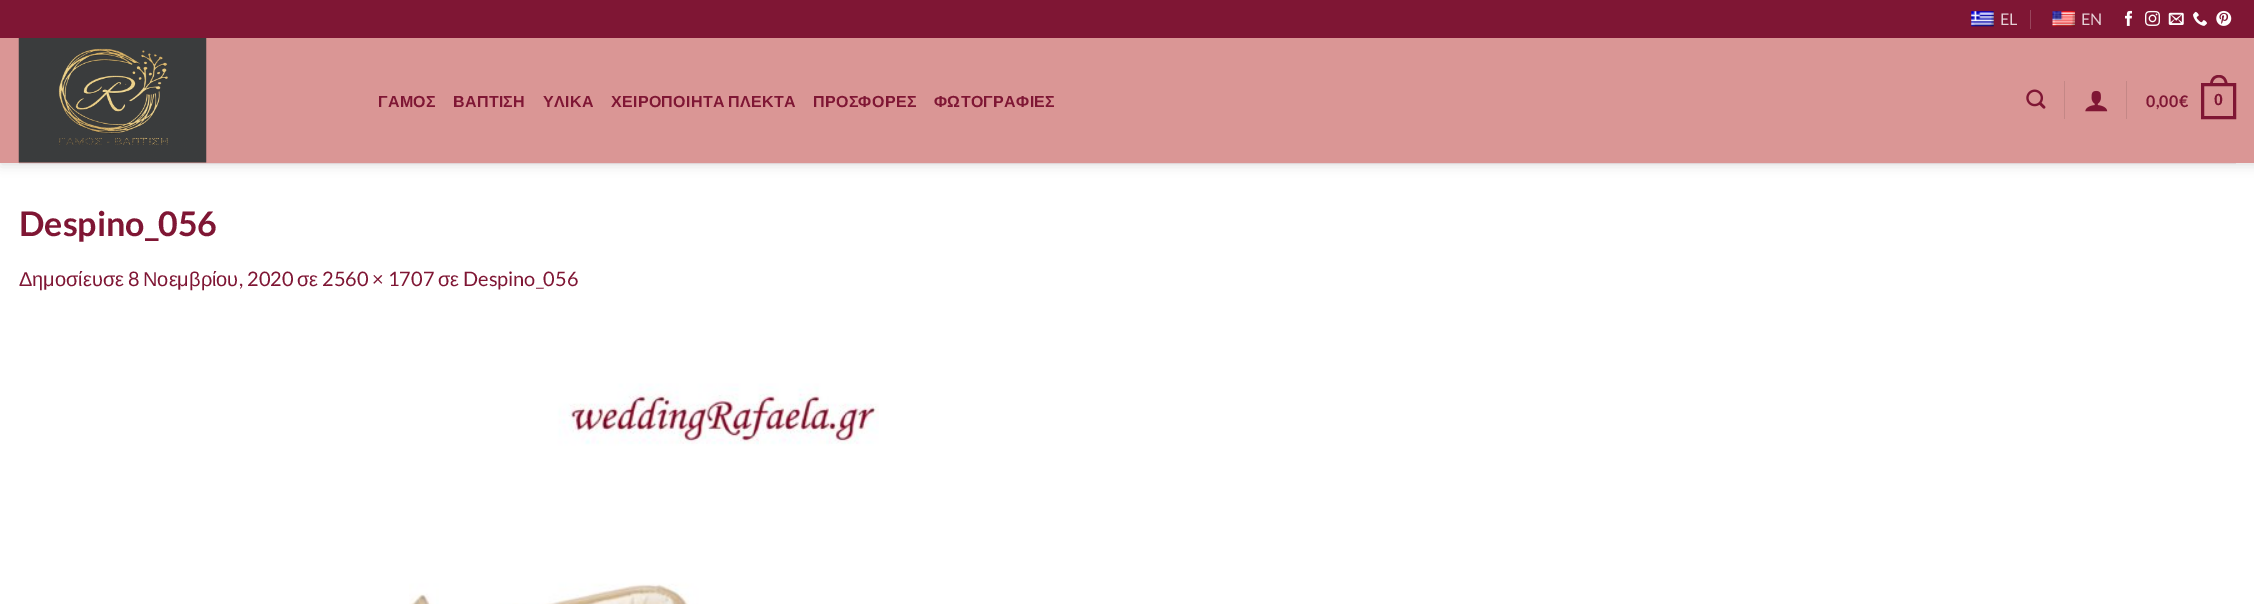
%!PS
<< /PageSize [2254 604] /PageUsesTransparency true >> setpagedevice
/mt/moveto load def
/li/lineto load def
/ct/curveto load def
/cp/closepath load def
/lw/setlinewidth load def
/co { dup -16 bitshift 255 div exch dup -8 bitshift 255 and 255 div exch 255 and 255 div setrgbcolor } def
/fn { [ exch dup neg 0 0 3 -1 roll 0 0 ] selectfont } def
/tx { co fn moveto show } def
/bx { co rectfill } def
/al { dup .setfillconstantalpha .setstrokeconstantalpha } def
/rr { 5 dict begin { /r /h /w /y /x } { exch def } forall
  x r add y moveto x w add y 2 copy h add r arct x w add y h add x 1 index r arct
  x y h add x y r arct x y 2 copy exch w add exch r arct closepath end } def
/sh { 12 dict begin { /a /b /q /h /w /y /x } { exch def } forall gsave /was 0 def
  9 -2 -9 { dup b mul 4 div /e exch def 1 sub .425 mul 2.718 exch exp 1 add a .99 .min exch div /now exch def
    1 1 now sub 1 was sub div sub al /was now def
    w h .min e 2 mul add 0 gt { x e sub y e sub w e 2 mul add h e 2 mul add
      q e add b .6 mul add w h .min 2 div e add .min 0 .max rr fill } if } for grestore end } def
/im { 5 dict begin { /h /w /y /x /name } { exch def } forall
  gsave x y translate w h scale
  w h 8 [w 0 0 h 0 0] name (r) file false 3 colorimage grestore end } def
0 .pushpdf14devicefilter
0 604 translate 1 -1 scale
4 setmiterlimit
0 0 2254 604 16#FFFFFF bx
16#000000 co
1 1 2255 163 0 6 .15 sh
0 0 2254 38 16#7F1634 bx
(media/1.raw) 1971 11 23 16 im
2030 10 1 19 16#99455D bx
(media/2.raw) 2052 11 23 16 im
(media/3.raw) 2125 10 7 16 im
(media/4.raw) 2145 10 15 16 im
(media/5.raw) 2168 12 16 13 im
(media/6.raw) 2193 11 14 15 im
(media/7.raw) 2216 10 16 16 im
0 38 2254 125 16#DA9695 bx
(media/8.raw) 18 38 189 125 im
(media/9.raw) 2026 89 20 20 im
2064 81 1 38 16#C48786 bx
(media/10.raw) 2085 90 23 22 im
2126 81 1 38 16#C48786 bx
16#7F1634 co
3 lw
2202.5 84.5 32 33 rectstroke
2219 75 mt 2224.5 75 2227.5 79.5 2227.5 85 ct 2210 85 li 2210 79.5 2213 75 2219 75 ct cp 2219 77.5 mt 2223 77.5 2225 81 2225 85 ct 2212.5 85 li 2212.5 81 2214.5 77.5 2219 77.5 ct cp eofill
19 163 2217 1 16#E0D5D8 bx
(media/11.raw) 409 383 470 221 im
(EL) 2000 25 /Lato-Regular 16 16#E5D0D6 tx
(EN) 2081 25 /Lato-Regular 16 16#E5D0D6 tx
/LiberationSans-Bold 16 fn
16#7F1634 co
378 107 mt .3 0 (ΓΑΜΟΣ) ashow
453 107 mt .3 0 (ΒΑΠΤΙΣΗ) ashow
543 107 mt .3 0 (ΥΛΙΚΑ) ashow
611 107 mt -1 0 32 .3 0 (ΧΕΙΡΟΠΟΙΗΤΑ ΠΛΕΚΤΑ) awidthshow
813 107 mt .3 0 (ΠΡΟΣΦΟΡΕΣ) ashow
934 107 mt .3 0 (ΦΩΤΟΓΡΑΦΙΕΣ) ashow
/Lato-Bold 16 fn
2146 107 mt .3 0 (0,00€) ashow
/LiberationSans-Bold 16 fn
2214 105 mt .3 0 (0) ashow
(Despino_056) 19 236 /Lato-Bold 34 16#7F1634 tx
(Δημοσίευσε) 19 286 /LiberationSans-Regular 20 16#7F1634 tx
(8) 128 286 /Lato-Regular 20 16#7F1634 tx
(Νοεμβρίου) 143 286 /LiberationSans-Regular 20 16#7F1634 tx
(, 2020) 239 286 /Lato-Regular 20 16#7F1634 tx
(σε) 297 286 /LiberationSans-Regular 20 16#7F1634 tx
(2560 × 1707) 322 286 /Lato-Regular 20 16#7F1634 tx
(σε) 438 286 /LiberationSans-Regular 20 16#7F1634 tx
(Despino_056) 463 286 /Lato-Regular 20 16#7F1634 tx
.poppdf14devicefilter showpage
